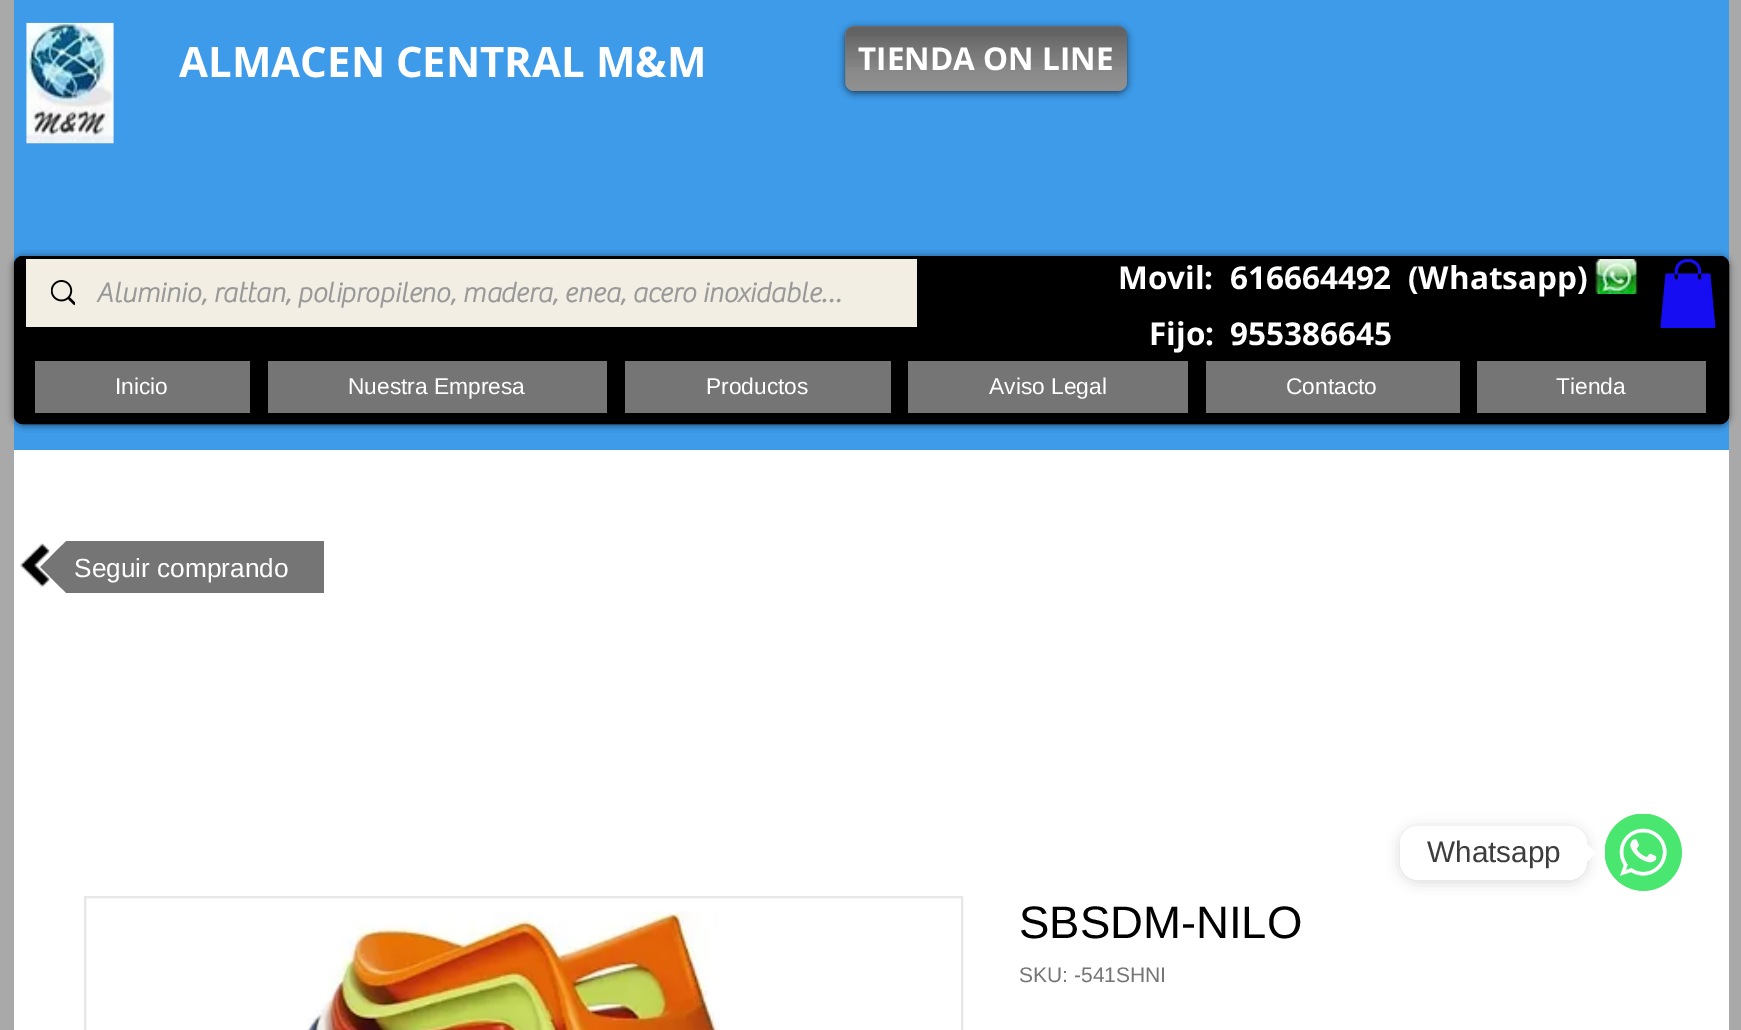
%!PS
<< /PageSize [1741 1030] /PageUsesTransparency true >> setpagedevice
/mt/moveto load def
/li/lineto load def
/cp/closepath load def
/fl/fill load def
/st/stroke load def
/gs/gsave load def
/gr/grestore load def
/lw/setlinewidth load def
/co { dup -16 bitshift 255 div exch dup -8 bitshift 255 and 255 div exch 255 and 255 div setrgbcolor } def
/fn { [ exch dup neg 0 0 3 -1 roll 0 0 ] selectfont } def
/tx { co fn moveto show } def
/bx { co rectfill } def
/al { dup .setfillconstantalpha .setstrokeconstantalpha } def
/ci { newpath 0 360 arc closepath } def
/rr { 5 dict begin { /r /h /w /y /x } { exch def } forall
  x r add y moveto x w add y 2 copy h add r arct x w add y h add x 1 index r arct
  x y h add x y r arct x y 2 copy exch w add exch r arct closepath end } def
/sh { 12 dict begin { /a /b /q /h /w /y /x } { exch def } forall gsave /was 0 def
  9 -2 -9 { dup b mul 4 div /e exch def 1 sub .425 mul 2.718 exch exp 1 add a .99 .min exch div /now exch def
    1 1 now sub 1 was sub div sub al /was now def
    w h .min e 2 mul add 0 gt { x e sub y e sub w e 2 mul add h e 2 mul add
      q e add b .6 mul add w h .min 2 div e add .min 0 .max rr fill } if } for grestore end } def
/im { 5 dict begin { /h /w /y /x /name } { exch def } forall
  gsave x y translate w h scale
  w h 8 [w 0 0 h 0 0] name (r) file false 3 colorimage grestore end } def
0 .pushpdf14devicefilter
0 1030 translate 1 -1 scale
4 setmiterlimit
0 0 1741 1030 16#A9A9A9 bx
14 0 1715 450 16#3D9BE9 bx
(media/1.raw) 26 22 88 122 im
16#000000 co
845 28 282 65 9 3.5 .6 sh
16#757575 co
845 26 282 65 9 rr fl
(media/2.raw) 845 26 282 41 im
(media/3.raw) 845 36 282 55 im
16#000000 co
14 257 1715 168 9 3.5 .6 sh
14 256 1715 168 9 rr fl
(media/4.raw) 14 261 1715 2 im
2 lw
15 257 1713 166 8 rr st
26 259 891 68 16#F2EEE4 bx
(media/5.raw) 51 280 24 26 im
(media/6.raw) 1594 259 44 35 im
(media/7.raw) 1660 259 56 69 im
35 361 215 52 16#757575 bx
268 361 339 52 16#757575 bx
625 361 266 52 16#757575 bx
908 361 280 52 16#757575 bx
1206 361 254 52 16#757575 bx
1477 361 229 52 16#757575 bx
14 450 1715 580 16#FFFFFF bx
gs
40 541 284 52 rectclip
16#757575 co
128 567 mt 40 567 li 128 480 li cp fl
40 567 mt 128 567 li 128 654 li cp fl
gr
(media/8.raw) 20 543 30 44 im
128 541 196 52 16#757575 bx
16#E8E6E6 co
85 897 877 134 rectstroke
(media/9.raw) 307 911 413 119 im
16#49E670 co
1643.5 852.5 38.5 ci fl
(media/10.raw) 1605 814 77 77 im
16#000000 co
1400 828 187 54 18 7 .15 sh
16#FFFFFF co
1400 826 187 54 18 rr fl
1587 862 mt 1587 844.5 li 1596 853 li cp fl
(ALMACEN CENTRAL M&M) 179 77 /OpenSans-Bold 42 16#FFFFFF tx
(TIENDA ON LINE) 858 70 /OpenSans-Bold 31.5 16#FFFFFF tx
(Aluminio, rattan, polipropileno, madera, enea, acero inoxidable…) 96 302 /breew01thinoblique-Bold 28 16#999999 tx
(Movil:  616664492  \(Whatsapp\)) 1118 289 /OpenSans-Bold 31.5 16#FFFFFF tx
(Fijo:  955386645) 1149 345 /OpenSans-Bold 31.5 16#FFFFFF tx
(Inicio) 115 394 /LiberationSans-Regular 22.75 16#FFFFFF tx
(Nuestra Empresa) 348 394 /LiberationSans-Regular 22.75 16#FFFFFF tx
(Productos) 706 394 /LiberationSans-Regular 22.75 16#FFFFFF tx
(Aviso Legal) 989 394 /LiberationSans-Regular 22.75 16#FFFFFF tx
(Contacto) 1286 394 /LiberationSans-Regular 22.75 16#FFFFFF tx
(Tienda) 1556 394 /LiberationSans-Regular 22.75 16#FFFFFF tx
(Seguir comprando) 74 577 /LiberationSans-Regular 26.25 16#FFFFFF tx
(SBSDM-NILO) 1019 938 /LiberationSans-Regular 45.5 16#000000 tx
(SKU: -541SHNI) 1019 982 /LiberationSans-Regular 21 16#757575 tx
(Whatsapp) 1427 862 /LiberationSans-Regular 29.75 16#3D3D3D tx
.poppdf14devicefilter showpage
